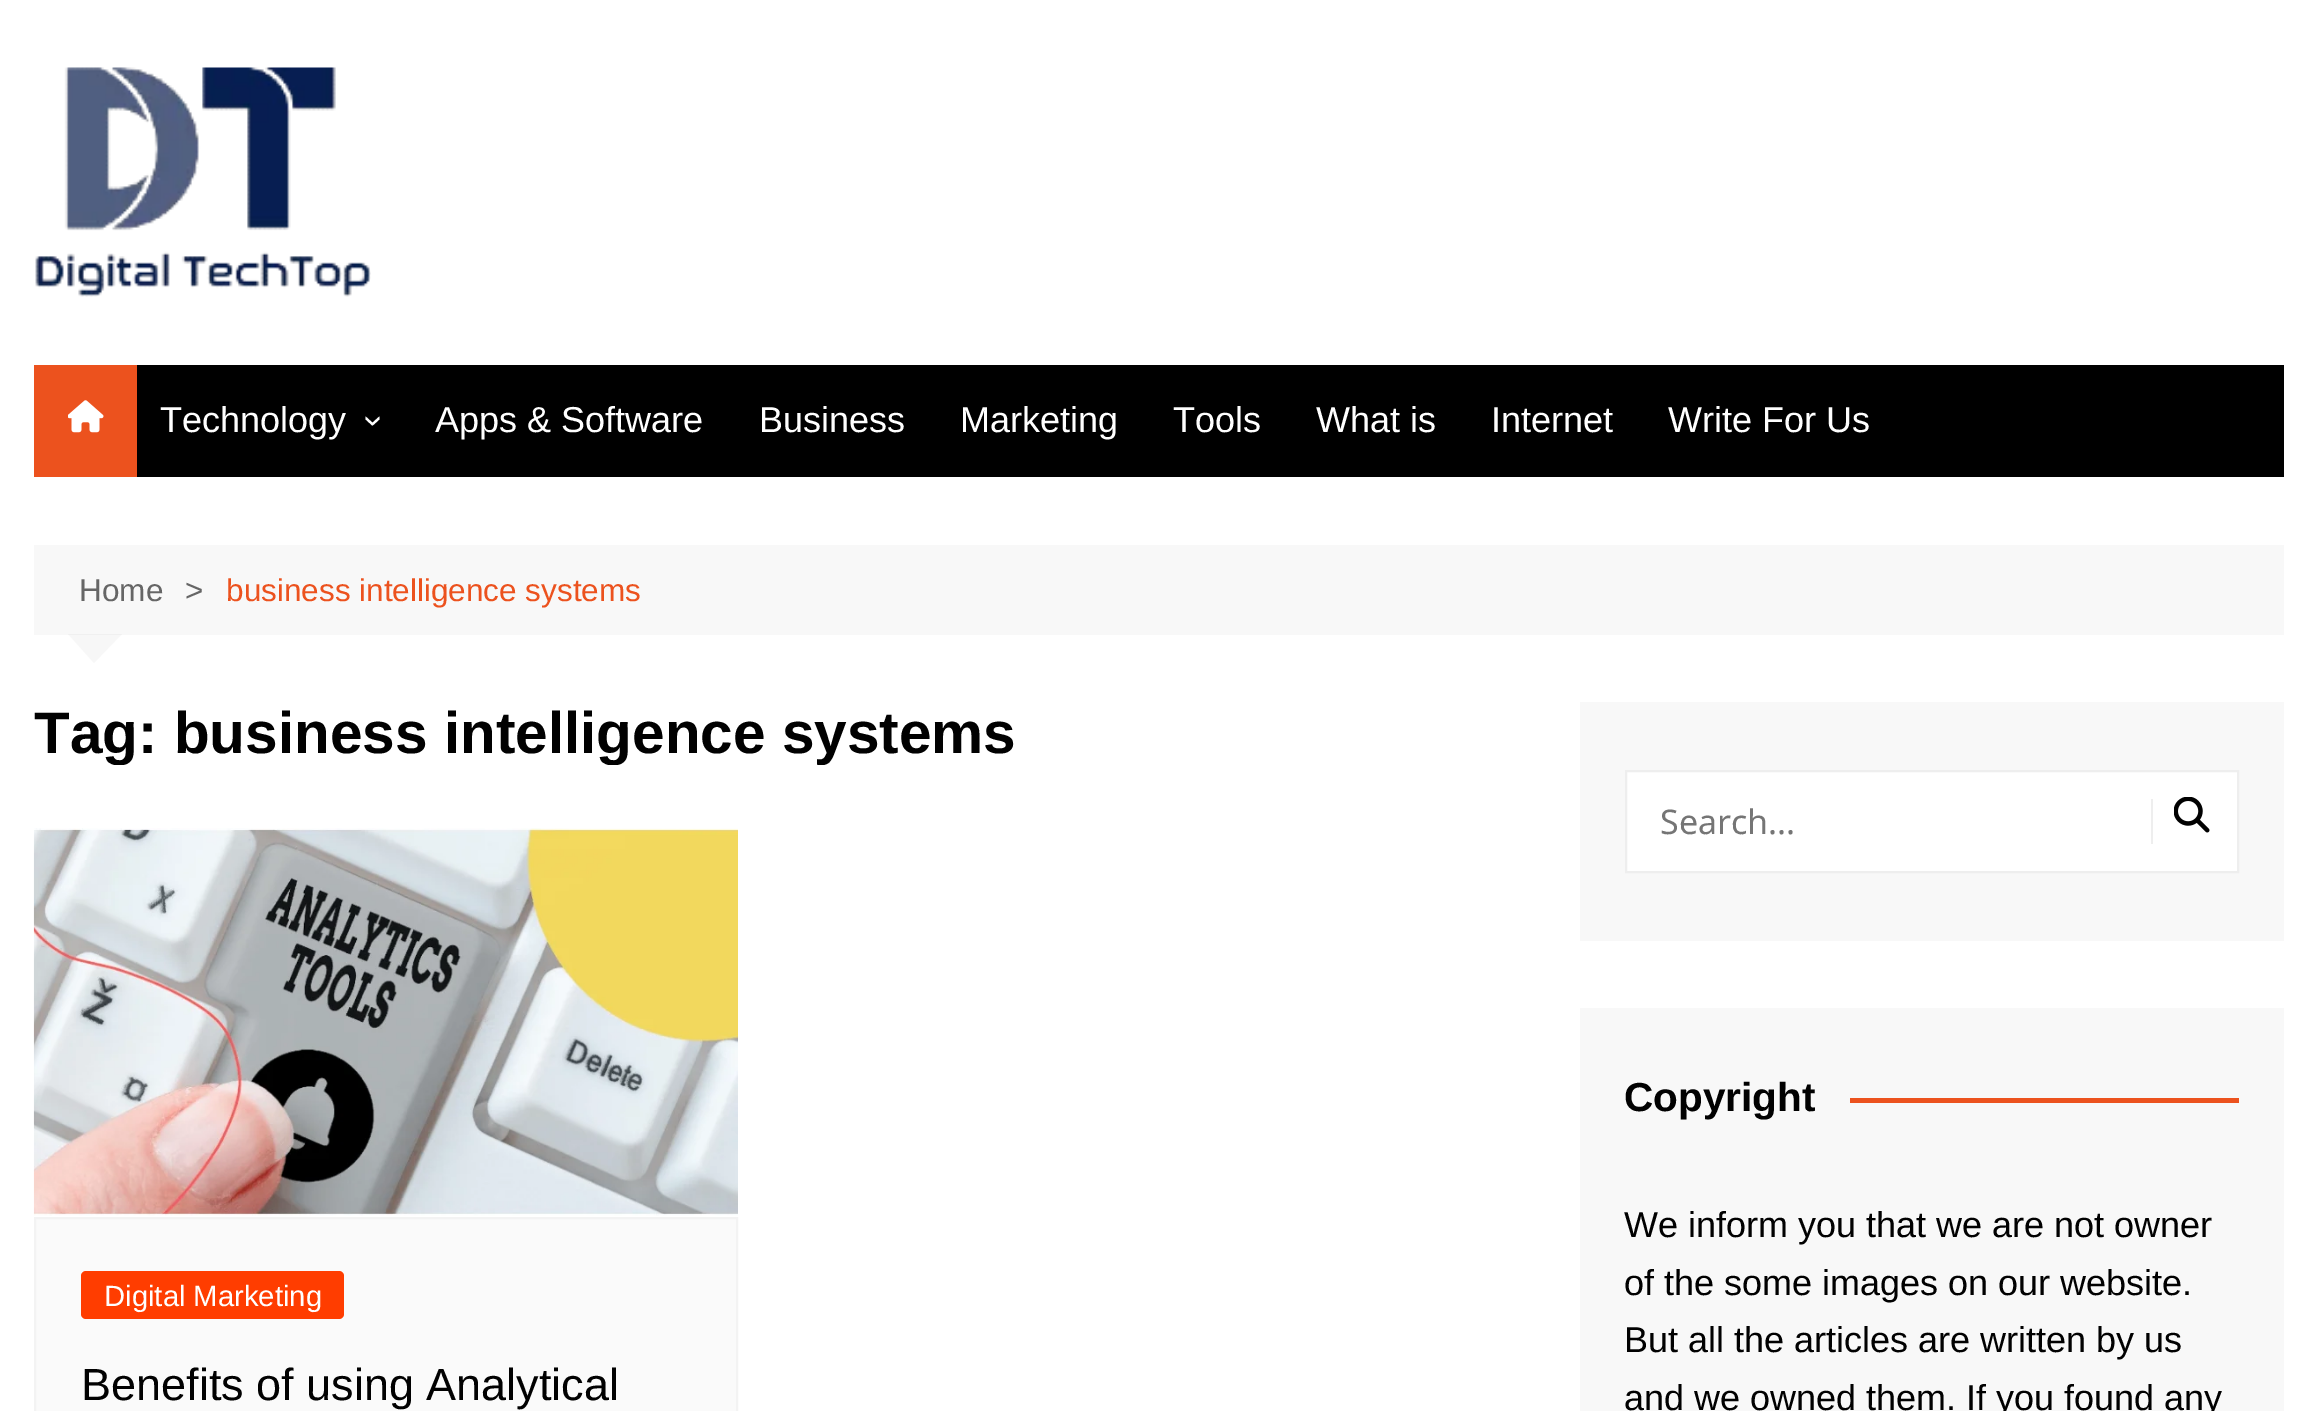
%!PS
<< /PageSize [2317 1411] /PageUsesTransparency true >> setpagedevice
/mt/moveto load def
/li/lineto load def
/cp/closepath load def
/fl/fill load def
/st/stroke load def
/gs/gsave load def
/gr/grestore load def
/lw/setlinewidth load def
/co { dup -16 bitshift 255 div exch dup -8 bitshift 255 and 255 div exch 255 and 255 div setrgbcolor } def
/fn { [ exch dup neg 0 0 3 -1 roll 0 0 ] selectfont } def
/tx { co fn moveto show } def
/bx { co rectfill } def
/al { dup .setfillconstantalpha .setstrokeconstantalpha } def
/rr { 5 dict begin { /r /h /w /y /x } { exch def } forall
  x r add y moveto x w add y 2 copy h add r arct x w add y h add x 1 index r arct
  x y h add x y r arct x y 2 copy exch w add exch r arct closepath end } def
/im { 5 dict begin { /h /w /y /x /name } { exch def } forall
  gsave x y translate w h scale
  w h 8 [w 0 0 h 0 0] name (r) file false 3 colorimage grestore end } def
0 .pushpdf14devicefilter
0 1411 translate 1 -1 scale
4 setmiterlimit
0 0 2317 1411 16#FFFFFF bx
(media/1.raw) 35 67 336 230 im
137 365 2147 112 16#000000 bx
34 365 103 112 16#EC521E bx
(media/2.raw) 68 400 36 33 im
34 545 2250 90 16#F8F8F8 bx
0.03 al
16#000000 co
68 634 mt 122 634 li 94 663 li cp fl
1 al
(media/3.raw) 33 828 705 388 im
16#FAFAFA co
35 1218 mt 737 1218 li 737 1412 li 35 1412 li cp gs fl gr
16#F3F3F3 co
2 lw
st
16#FF3D00 co
81 1271 263 48 5 rr fl
1580 702 704 239 16#F8F8F8 bx
16#FFFFFF co
1626 771 mt 2238 771 li 2238 872 li 1626 872 li cp gs fl gr
16#EEEEEE co
st
2151 799 2 45 16#EEEEEE bx
(media/4.raw) 2174 797 36 36 im
1580 1008 704 403 16#F8F8F8 bx
1850 1098 389 5 16#EC521E bx
(Technology) 160 432 /LiberationSans-Regular 36 16#FFFFFF tx
gs 363 415 translate 90 rotate 0 0 mt (›) show gr
(Apps & Software) 435 432 /LiberationSans-Regular 36 16#FFFFFF tx
(Business) 759 432 /LiberationSans-Regular 36 16#FFFFFF tx
(Marketing) 960 432 /LiberationSans-Regular 36 16#FFFFFF tx
(Tools) 1173 432 /LiberationSans-Regular 36 16#FFFFFF tx
(What is) 1316 432 /LiberationSans-Regular 36 16#FFFFFF tx
(Internet) 1491 432 /LiberationSans-Regular 36 16#FFFFFF tx
(Write For Us) 1668 432 /LiberationSans-Regular 36 16#FFFFFF tx
(Home) 79 601 /LiberationSans-Regular 31.5 16#666666 tx
(>) 185 601 /LiberationSans-Regular 31.5 16#666666 tx
(business intelligence systems) 226 601 /LiberationSans-Regular 31.5 16#EC521E tx
gs
34 702 1478 63 rectclip
(Tag: business intelligence systems) 34 753 /LiberationSans-Bold 58.5 16#010101 tx
gr
(Digital Marketing) 104 1306 /LiberationSans-Regular 29.25 16#FFFFFF tx
(Benefits of using Analytical) 81 1400 /LiberationSans-Regular 45 16#010101 tx
(Search...) 1660 834 /NotoSans-Regular 34 16#757575 tx
(Copyright) 1624 1111 /LiberationSans-Bold 40.5 16#010101 tx
(We inform you that we are not owner) 1624 1237 /LiberationSans-Regular 36 16#010101 tx
(of the some images on our website.) 1624 1295 /LiberationSans-Regular 36 16#010101 tx
(But all the articles are written by us) 1624 1352 /LiberationSans-Regular 36 16#010101 tx
(and we owned them. If you found any) 1624 1410 /LiberationSans-Regular 36 16#010101 tx
.poppdf14devicefilter showpage
